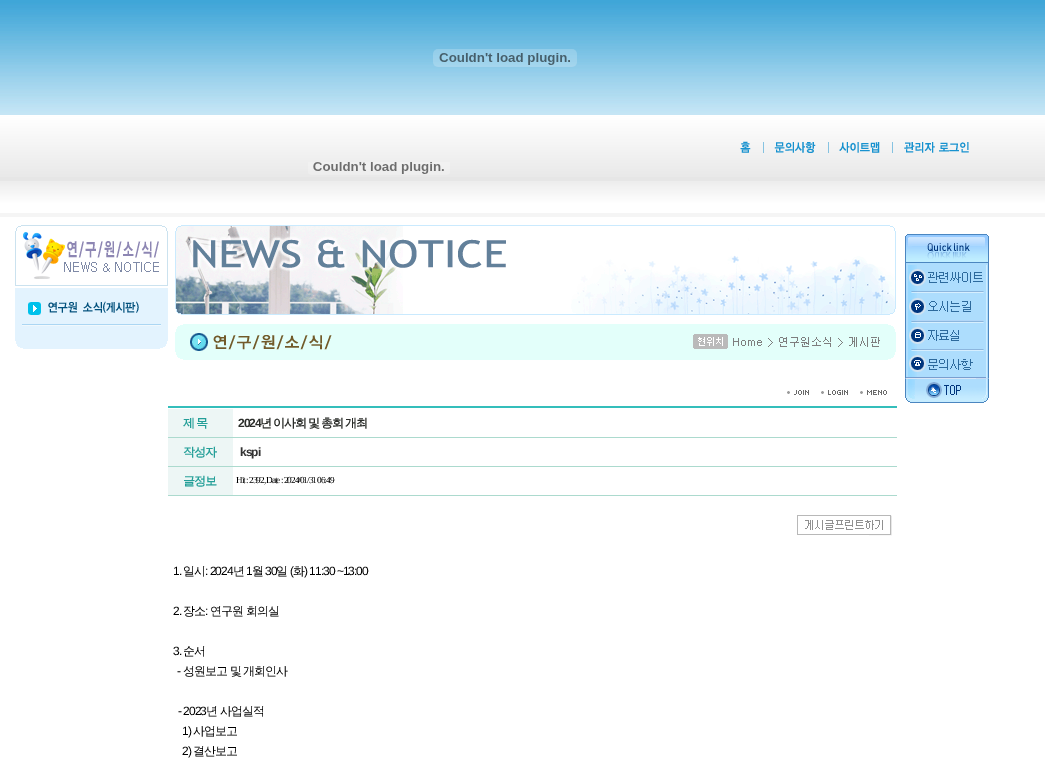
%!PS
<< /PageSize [1045 773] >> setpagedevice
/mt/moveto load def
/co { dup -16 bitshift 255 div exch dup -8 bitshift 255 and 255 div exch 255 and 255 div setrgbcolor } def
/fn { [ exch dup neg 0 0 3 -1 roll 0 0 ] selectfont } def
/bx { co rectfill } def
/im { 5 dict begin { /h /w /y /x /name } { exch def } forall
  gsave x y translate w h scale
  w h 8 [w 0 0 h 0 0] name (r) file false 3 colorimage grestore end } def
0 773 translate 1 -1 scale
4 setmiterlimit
0 0 1045 773 16#FFFFFF bx
(media/1.raw) 0 0 1045 217 im
(media/2.raw) 433 49 144 18 im
(media/3.raw) 740 141 229 12 im
(media/4.raw) 308 162 142 13 im
(media/5.raw) 15 225 153 68 im
(media/6.raw) 15 293 153 33 im
(media/7.raw) 15 326 153 23 im
(media/8.raw) 905 234 84 169 im
(media/9.raw) 175 225 721 135 im
(media/10.raw) 787 390 22 5 im
(media/11.raw) 821 390 27 5 im
(media/12.raw) 860 390 27 5 im
168 406 729 2 16#34BEBB bx
168 409 65 28 16#EDF6F5 bx
168 437 729 1 16#ACDACE bx
168 438 65 28 16#EDF6F5 bx
168 466 729 1 16#ACDACE bx
168 467 65 28 16#EDF6F5 bx
168 495 729 1 16#ACDACE bx
(media/13.raw) 797 515 95 21 im
/WenQuanYiZenHei-Bold 12 fn
16#249F98 co
183 427 mt -1 0 32 -1 0 (제 목) awidthshow
/LiberationSans-Bold 12 fn
16#2A2C29 co
238 427 mt -1 0 (2024) ashow
/WenQuanYiZenHei-Bold 12 fn
260 427 mt -.5 0 32 -1 0 (년 이사회 및 총회 개최) awidthshow
16#249F98 co
183 456 mt -1 0 (작성자) ashow
/LiberationSans-Bold 12 fn
16#333333 co
240 456 mt -1 0 (kspi) ashow
/WenQuanYiZenHei-Bold 12 fn
16#249F98 co
183 485 mt -1 0 (글정보) ashow
/LiberationSerif-Regular 9.25 fn
16#000000 co
236 483 mt -1 0 (Hit : 2392, Date : 2024/01/31 06:49) ashow
/LiberationSans-Regular 12 fn
173 575 mt -1 0 (1.) ashow
/WenQuanYiZenHei-Medium 12 fn
183 575 mt -1 0 (일시) ashow
/LiberationSans-Regular 12 fn
205 575 mt -1 0 (: 2024) ashow
/WenQuanYiZenHei-Medium 12 fn
233 575 mt -1 0 (년) ashow
/LiberationSans-Regular 12 fn
246 575 mt -1 0 (1) ashow
/WenQuanYiZenHei-Medium 12 fn
252 575 mt -1 0 (월) ashow
/LiberationSans-Regular 12 fn
265 575 mt -1 0 (30) ashow
/WenQuanYiZenHei-Medium 12 fn
276 575 mt -1 0 (일) ashow
/LiberationSans-Regular 12 fn
290 575 mt -1 0 (\() ashow
/WenQuanYiZenHei-Medium 12 fn
293 575 mt -1 0 (화) ashow
/LiberationSans-Regular 12 fn
304 575 mt -1 0 (\) 11:30 ~13:00) ashow
173 615 mt -1 0 (2.) ashow
/WenQuanYiZenHei-Medium 12 fn
183 615 mt -1 0 (장소) ashow
/LiberationSans-Regular 12 fn
205 615 mt -1 0 (:) ashow
/WenQuanYiZenHei-Medium 12 fn
210 615 mt -1 0 (연구원 회의실) ashow
/LiberationSans-Regular 12 fn
173 655 mt -1 0 (3.) ashow
/WenQuanYiZenHei-Medium 12 fn
183 655 mt -1 0 (순서) ashow
/LiberationSans-Regular 12 fn
177 675 mt -1 0 (-) ashow
/WenQuanYiZenHei-Medium 12 fn
183 675 mt -1 0 (성원보고 및 개회인사) ashow
/LiberationSans-Regular 12 fn
178 715 mt -1 0 (- 2023) ashow
/WenQuanYiZenHei-Medium 12 fn
206 715 mt -1 0 (년 사업실적) ashow
/LiberationSans-Regular 12 fn
182 735 mt -1 0 (1\)) ashow
/WenQuanYiZenHei-Medium 12 fn
193 735 mt -1 0 (사업보고) ashow
/LiberationSans-Regular 12 fn
182 755 mt -1 0 (2\)) ashow
/WenQuanYiZenHei-Medium 12 fn
193 755 mt -1 0 (결산보고) ashow
showpage
